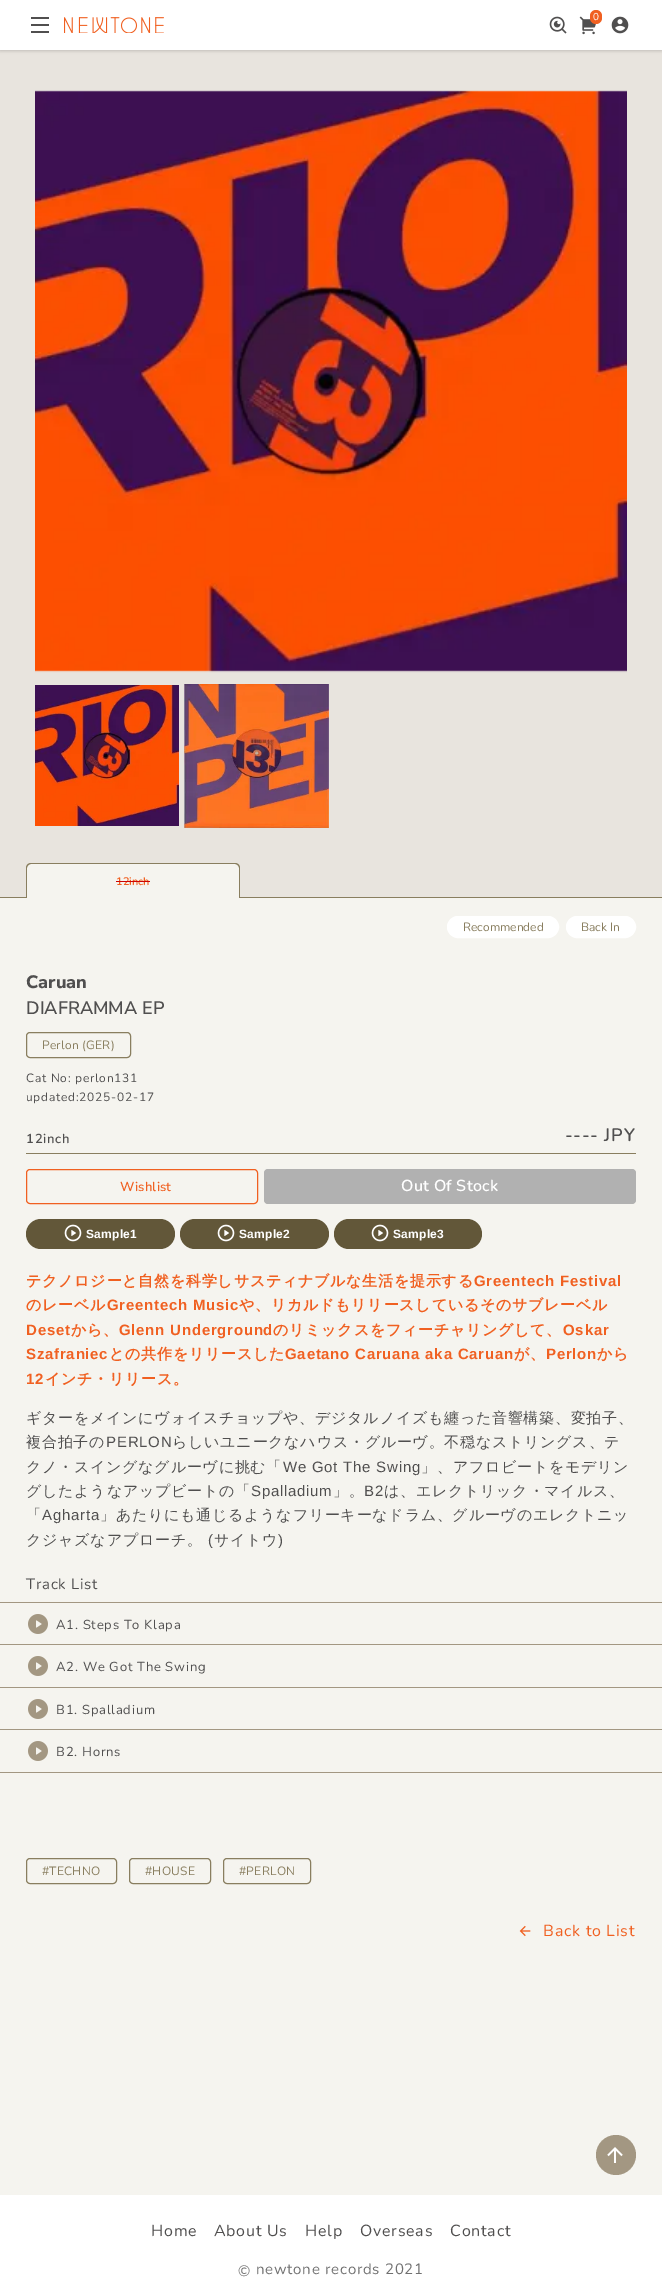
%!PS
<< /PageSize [662 2292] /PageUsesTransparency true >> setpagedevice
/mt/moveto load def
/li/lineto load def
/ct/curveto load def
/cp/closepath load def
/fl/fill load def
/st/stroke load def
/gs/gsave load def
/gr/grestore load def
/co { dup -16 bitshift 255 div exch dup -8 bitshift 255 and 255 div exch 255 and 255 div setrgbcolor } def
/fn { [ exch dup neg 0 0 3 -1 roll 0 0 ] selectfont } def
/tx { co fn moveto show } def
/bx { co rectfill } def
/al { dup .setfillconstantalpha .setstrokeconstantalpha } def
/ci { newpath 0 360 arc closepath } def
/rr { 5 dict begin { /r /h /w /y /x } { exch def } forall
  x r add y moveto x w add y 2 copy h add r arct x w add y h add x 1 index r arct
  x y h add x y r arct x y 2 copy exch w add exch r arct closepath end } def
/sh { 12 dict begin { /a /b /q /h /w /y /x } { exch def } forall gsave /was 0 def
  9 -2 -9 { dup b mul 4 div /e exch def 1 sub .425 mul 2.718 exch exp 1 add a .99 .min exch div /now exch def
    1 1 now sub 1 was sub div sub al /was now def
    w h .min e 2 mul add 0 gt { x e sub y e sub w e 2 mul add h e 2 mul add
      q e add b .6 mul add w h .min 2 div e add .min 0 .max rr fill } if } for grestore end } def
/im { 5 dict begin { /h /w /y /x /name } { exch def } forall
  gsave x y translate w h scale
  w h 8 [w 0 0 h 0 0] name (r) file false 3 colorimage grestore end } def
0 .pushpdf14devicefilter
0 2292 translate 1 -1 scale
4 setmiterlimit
0 0 662 2292 16#FFFFFF bx
0 50 662 847 16#E8E4DE bx
16#000000 co
0 1 662 50 0 1.5 .16 sh
0 0 662 50 16#FFFFFF bx
31 24 18 2 16#504F4F bx
31 17 18 2 16#504F4F bx
31 31 18 2 16#504F4F bx
(media/1.raw) 64 17 100 16 im
(media/2.raw) 549 16 18 18 im
(media/3.raw) 579 16 18 19 im
16#F06021 co
590 10 12 14 6 rr fl
(media/4.raw) 611 16 18 18 im
0 898 662 1297 16#F5F4EF bx
(media/5.raw) 35 90 592 583 im
(media/6.raw) 35 685 144 141 im
(media/7.raw) 184 684 145 144 im
0 897 662 1 16#897E5F bx
16#F5F4EF co
31 863 mt 235 863 li 238 863 240 865 240 868 ct 240 897 li 26 897 li 26 868 li 26 865 28 863 31 863 ct cp fl
16#897E5F co
31 863 mt 235 863 li 238 863 240 865 240 868 ct 240 897 li 26 897 li 26 868 li 26 865 28 863 31 863 ct cp 31 864 mt 235 864 li 237 864 239 866 239 868 ct 239 897 li 27 897 li 27 868 li 27 866 29 864 31 864 ct cp eofill
27 897 212 1 16#F5F4EF bx
16#FFFFFF co
447.5 916.5 111 21 10.5 rr gs fl gr
st
566.5 916.5 69 21 10.5 rr gs fl gr
st
16#897E5F co
26.5 1032.5 104 25 3.5 rr st
26 1153 610 1 16#897E5F bx
16#F06021 co
26.5 1169.5 231 34 3.5 rr st
16#B1B1B1 co
264 1169 372 35 4 rr fl
16#625739 co
26 1219 149 30 15 rr fl
(media/8.raw) 64 1224 18 18 im
180 1219 149 30 15 rr fl
(media/8.raw) 217 1224 18 18 im
334 1219 148 30 15 rr fl
(media/8.raw) 371 1224 18 18 im
0 1602 662 1 16#A39782 bx
0 1644 662 1 16#A39782 bx
(media/9.raw) 28 1614 20 20 im
0 1687 662 1 16#A39782 bx
(media/9.raw) 28 1656 20 20 im
0 1729 662 1 16#A39782 bx
(media/9.raw) 28 1699 20 20 im
0 1772 662 1 16#A39782 bx
(media/9.raw) 28 1741 20 20 im
16#897E5F co
26.5 1858.5 90 25 3.5 rr st
129.5 1858.5 81 25 3.5 rr st
223.5 1858.5 87 25 3.5 rr st
(media/10.raw) 519 1925 12 12 im
16#A39782 co
616 2155 20 ci fl
(media/11.raw) 607 2147 16 16 im
(0) 593 20 /Nunito-Regular 10 16#FFFFFF tx
(12inch) 116 885 /Nunito-SemiBold 11 16#F06021 tx
116 881 34 1 16#CE0404 bx
(Recommended) 463 931 /Nunito-Regular 12 16#897E5F tx
(Back In) 581 931 /Nunito-Regular 12 16#897E5F tx
(Caruan) 26 988 /NunitoSans-ExtraBold 18 16#504F4F tx
(DIAFRAMMA EP) 26 1014 /NunitoSans-SemiBold 18 16#504F4F tx
/NunitoSans-Regular 12 fn
16#897E5F co
42 1049 mt .25 0 (Perlon \(GER\)) ashow
/Nunito-Regular 12 fn
16#504F4F co
26 1082 mt .75 0 (Cat No: perlon131) ashow
26 1101 mt .75 0 (updated:2025-02-17) ashow
/Nunito-SemiBold 13 fn
26 1143 mt .75 0 (12inch) ashow
/Nunito-SemiBold 18 fn
565 1141 mt .75 0 (---- JPY) ashow
/Nunito-SemiBold 13 fn
16#F06021 co
120 1191 mt .25 0 (Wishlist) ashow
/Nunito-SemiBold 16 fn
16#FFFFFF co
401 1191 mt .25 0 (Out Of Stock) ashow
/LiberationSans-Bold 12 fn
86 1238 mt .25 0 (Sample1) ashow
239 1238 mt .25 0 (Sample2) ashow
393 1238 mt .25 0 (Sample3) ashow
/WenQuanYiZenHei-Bold 15 fn
16#F06021 co
26 1286 mt .75 0 (テクノロジーと自然を科学しサスティナブルな生活を提示する) ashow
/LiberationSans-Bold 15 fn
474 1286 mt .75 0 (Greentech Festival) ashow
/WenQuanYiZenHei-Bold 15 fn
26 1310 mt .75 0 (のレーベル) ashow
/LiberationSans-Bold 15 fn
107 1310 mt .75 0 (Greentech Music) ashow
/WenQuanYiZenHei-Bold 15 fn
239 1310 mt .75 0 (や、リカルドもリリースしているそのサブレーベル) ashow
/LiberationSans-Bold 15 fn
26 1335 mt .75 0 (Deset) ashow
/WenQuanYiZenHei-Bold 15 fn
71 1335 mt .75 0 (から、) ashow
/LiberationSans-Bold 15 fn
119 1335 mt .75 0 (Glenn Underground) ashow
/WenQuanYiZenHei-Bold 15 fn
273 1335 mt .75 0 (のリミックスをフィーチャリングして、) ashow
/LiberationSans-Bold 15 fn
563 1335 mt .75 0 (Oskar) ashow
26 1359 mt .75 0 (Szafraniec) ashow
/WenQuanYiZenHei-Bold 15 fn
109 1359 mt .75 0 (との共作をリリースした) ashow
/LiberationSans-Bold 15 fn
285 1359 mt .75 0 (Gaetano Caruana aka Caruan) ashow
/WenQuanYiZenHei-Bold 15 fn
514 1359 mt .75 0 (が、) ashow
/LiberationSans-Bold 15 fn
546 1359 mt .75 0 (Perlon) ashow
/WenQuanYiZenHei-Bold 15 fn
597 1359 mt .75 0 (から) ashow
/LiberationSans-Bold 15 fn
26 1384 mt .75 0 (12) ashow
/WenQuanYiZenHei-Bold 15 fn
45 1384 mt .75 0 (インチ・リリース。) ashow
/WenQuanYiZenHei-Medium 15 fn
16#504F4F co
26 1423 mt .75 0 (ギターをメインにヴォイスチョップや、デジタルノイズも纏った音響構築、変拍子、) ashow
26 1447 mt .75 0 (複合拍子の) ashow
/LiberationSans-Regular 15 fn
106 1447 mt .75 0 (PERLON) ashow
/WenQuanYiZenHei-Medium 15 fn
172 1447 mt .75 0 (らしいユニークなハウス・グルーヴ。不穏なストリングス、テ) ashow
26 1472 mt .75 0 (クノ・スイングなグルーヴに挑む「) ashow
/LiberationSans-Regular 15 fn
283 1472 mt .75 0 (We Got The Swing) ashow
/WenQuanYiZenHei-Medium 15 fn
421 1472 mt .75 0 (」、アフロビートをモデリン) ashow
26 1496 mt .75 0 (グしたようなアップビートの「) ashow
/LiberationSans-Regular 15 fn
251 1496 mt .75 0 (Spalladium) ashow
/WenQuanYiZenHei-Medium 15 fn
333 1496 mt .75 0 (」。) ashow
/LiberationSans-Regular 15 fn
364 1496 mt .75 0 (B2) ashow
/WenQuanYiZenHei-Medium 15 fn
384 1496 mt .75 0 (は、エレクトリック・マイルス、) ashow
26 1520 mt .75 0 (「) ashow
/LiberationSans-Regular 15 fn
42 1520 mt .75 0 (Agharta) ashow
/WenQuanYiZenHei-Medium 15 fn
100 1520 mt .75 0 (」あたりにも通じるようなフリーキーなドラム、グルーヴのエレクトニッ) ashow
26 1545 mt .75 0 (クジャズなアプローチ。) ashow
/LiberationSans-Regular 15 fn
208 1545 mt .75 0 (\() ashow
/WenQuanYiZenHei-Medium 15 fn
214 1545 mt .75 0 (サイトウ) ashow
/LiberationSans-Regular 15 fn
278 1545 mt .75 0 (\)) ashow
/Nunito-Regular 15 fn
26 1589 mt .75 0 (Track List) ashow
/Nunito-Regular 13 fn
56 1629 mt .75 0 (A1. Steps To Klapa) ashow
56 1671 mt .75 0 (A2. We Got The Swing) ashow
56 1714 mt .75 0 (B1. Spalladium) ashow
56 1756 mt .75 0 (B2. Horns) ashow
/NunitoSans-Regular 12 fn
16#897E5F co
42 1875 mt .25 0 (#TECHNO) ashow
145 1875 mt .25 0 (#HOUSE) ashow
239 1875 mt .25 0 (#PERLON) ashow
/Nunito-Regular 16 fn
16#F06021 co
543 1936 mt .75 0 (Back to List) ashow
16#504F4F co
151 2236 mt .75 0 (Home) ashow
214 2236 mt .75 0 (About Us) ashow
305 2236 mt .75 0 (Help) ashow
360 2236 mt .75 0 (Overseas) ashow
450 2236 mt .75 0 (Contact) ashow
/Nunito-Regular 15 fn
16#707070 co
238 2276 mt .75 0 (©) ashow
256 2274 mt .75 0 (newtone records 2021) ashow
.poppdf14devicefilter showpage
